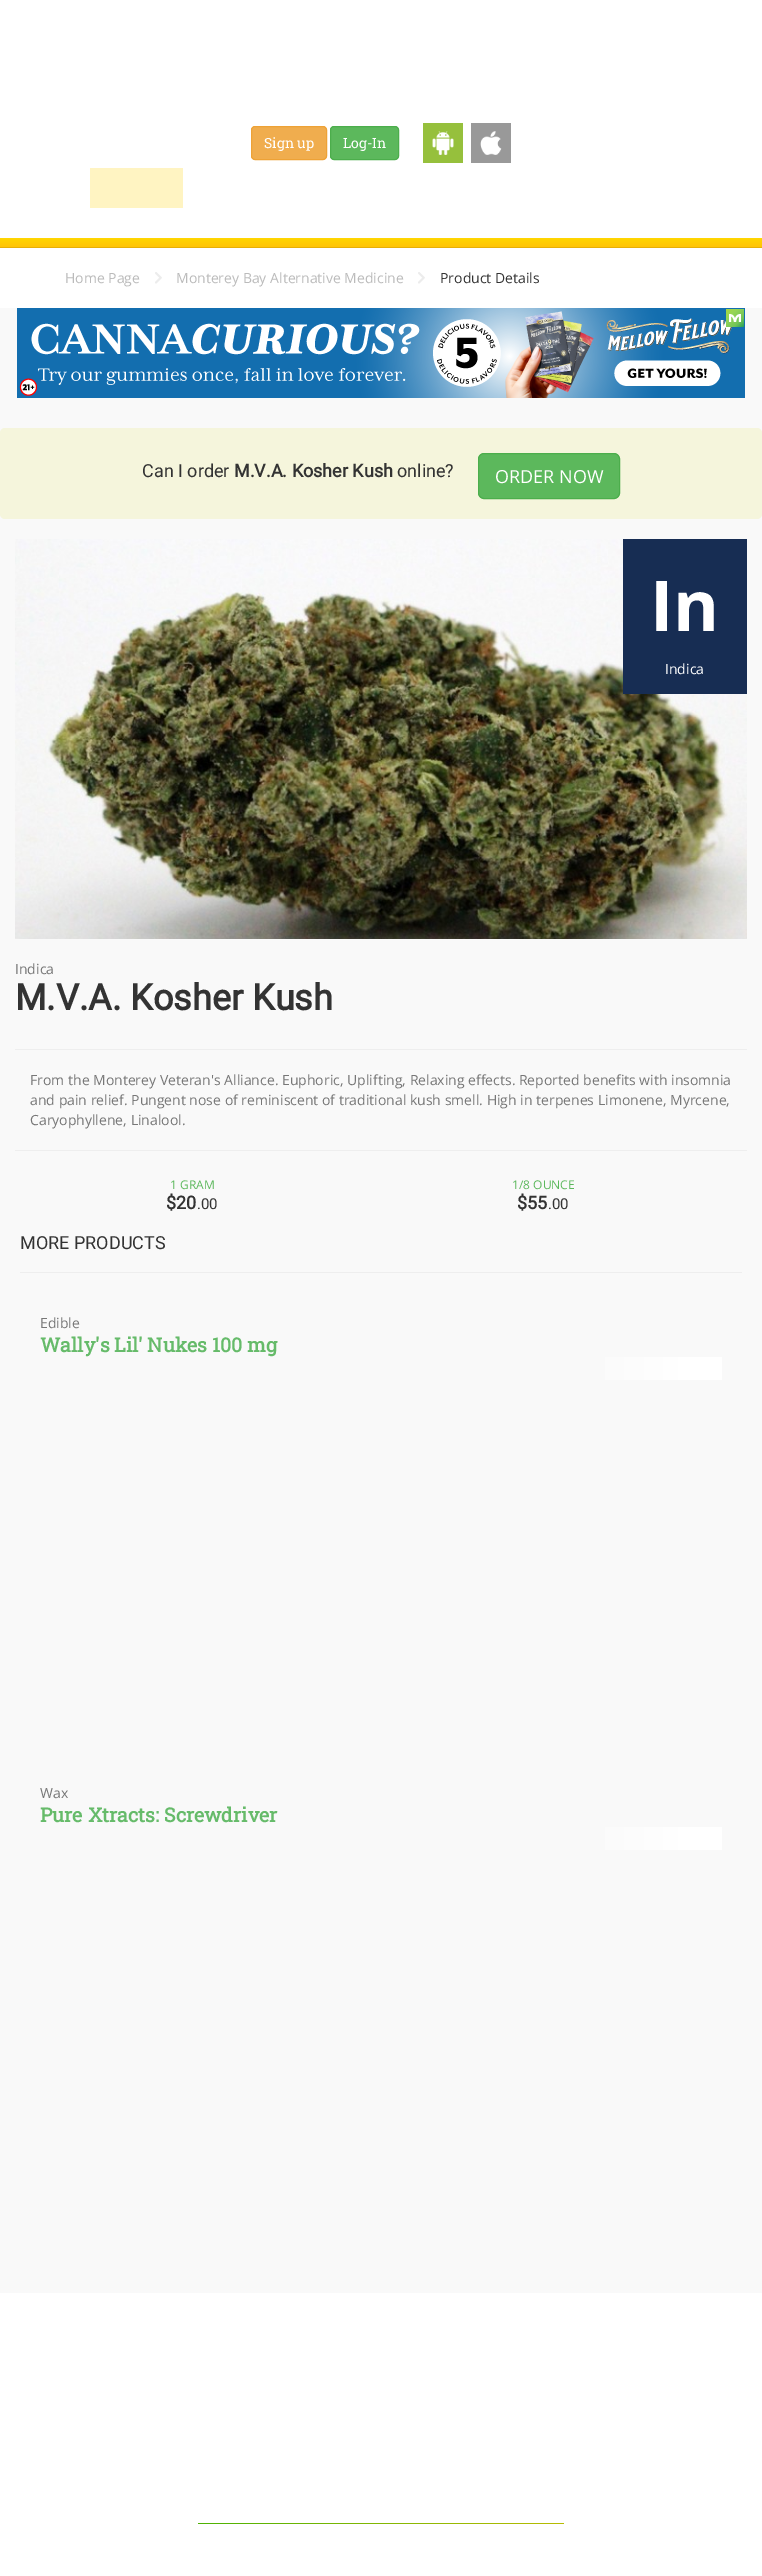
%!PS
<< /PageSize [762 2576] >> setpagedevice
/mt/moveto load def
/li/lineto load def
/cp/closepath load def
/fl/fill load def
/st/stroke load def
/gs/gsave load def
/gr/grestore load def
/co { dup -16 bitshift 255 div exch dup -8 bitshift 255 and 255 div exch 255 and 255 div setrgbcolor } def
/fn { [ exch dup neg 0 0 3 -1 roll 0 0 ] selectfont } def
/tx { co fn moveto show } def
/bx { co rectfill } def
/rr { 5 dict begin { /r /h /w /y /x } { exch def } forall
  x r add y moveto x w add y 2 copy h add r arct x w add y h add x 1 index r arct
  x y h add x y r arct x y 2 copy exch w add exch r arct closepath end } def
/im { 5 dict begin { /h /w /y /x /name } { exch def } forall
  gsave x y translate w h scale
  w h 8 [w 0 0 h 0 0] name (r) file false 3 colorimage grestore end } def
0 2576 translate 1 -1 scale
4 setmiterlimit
0 0 762 2576 16#FFFFFF bx
423 123 40 40 16#96C03C bx
471 123 40 40 16#999999 bx
16#F0AD4E co
251.5 126.5 75 33 3.5 rr gs fl gr
16#EEA236 co
st
16#5CB85C co
330.5 126.5 68 33 3.5 rr gs fl gr
16#4CAE4C co
st
(media/1.raw) 432 131 22 24 im
(media/2.raw) 480 131 22 24 im
90 168 93 40 16#FFF4C2 bx
gs 0 238 mt 762 238 li 762 247 li 0 247 li cp clip newpath
<< /ShadingType 2 /ColorSpace /DeviceRGB /Coords [381 248 381 238] /Extend [true true] /Function << /FunctionType 2 /Domain [0 1] /C0 [1 .757 .027] /C1 [1 .839 0] /N 1 >> >> shfill gr
0 247 762 1 16#E6AF06 bx
(media/3.raw) 155 272 7 12 im
(media/3.raw) 418 272 7 12 im
0 308 762 1985 16#F9F9F9 bx
(media/4.raw) 17 308 728 90 im
16#F5F5DC co
0 428 762 91 5 rr fl
16#5CB85C co
478.5 453.5 141 45 5.5 rr gs fl gr
16#4CAE4C co
st
(media/5.raw) 15 539 732 400 im
623 539 124 155 16#172D53 bx
15 1049 732 1 16#EEEEEE bx
15 1150 732 1 16#EEEEEE bx
20 1272 722 1 16#EEEEEE bx
gs 605 1357 mt 722 1357 li 722 1380 li 605 1380 li cp clip newpath
<< /ShadingType 2 /ColorSpace /DeviceRGB /Coords [552 1369 722 1369] /Extend [true true] /Function << /FunctionType 3 /Domain [0 1] /Functions [<< /FunctionType 2 /Domain [0 1] /C0 [.976 .976 .976] /C1 [1 1 1] /N 1 >> << /FunctionType 2 /Domain [0 1] /C0 [1 1 1] /C1 [1 1 1] /N 1 >>] /Bounds [.75] /Encode [0 1 0 1] >> >> shfill gr
gs 605 1827 mt 722 1827 li 722 1850 li 605 1850 li cp clip newpath
<< /ShadingType 2 /ColorSpace /DeviceRGB /Coords [552 1839 722 1839] /Extend [true true] /Function << /FunctionType 3 /Domain [0 1] /Functions [<< /FunctionType 2 /Domain [0 1] /C0 [.976 .976 .976] /C1 [1 1 1] /N 1 >> << /FunctionType 2 /Domain [0 1] /C0 [1 1 1] /C1 [1 1 1] /N 1 >>] /Bounds [.75] /Encode [0 1 0 1] >> >> shfill gr
(media/6.raw) 198 2523 366 1 im
(Sign up) 264 148 /RobotoSlab-Regular 14 16#FFFFFF tx
(Log-In) 343 148 /RobotoSlab-Regular 14 16#FFFFFF tx
(Home Page) 65 283 /OpenSans-Regular 14 16#BBBBBB tx
(Monterey Bay Alternative Medicine) 176 283 /OpenSans-Regular 14 16#BBBBBB tx
(Product Details) 440 283 /OpenSans-Regular 14 16#333333 tx
(Can I order) 142 477 /Roboto-Regular 18 16#333333 tx
(M.V.A. Kosher Kush) 234 477 /Roboto-Bold 18 16#333333 tx
(online?) 397 477 /Roboto-Regular 18 16#333333 tx
(ORDER NOW) 495 483 /OpenSans-Regular 18 16#FFFFFF tx
(In) 650 631 /OpenSans-Bold 70 16#FFFFFF tx
(Indica) 665 674 /OpenSans-Regular 14 16#FFFFFF tx
(Indica) 15 974 /OpenSans-Regular 14 16#777777 tx
(M.V.A. Kosher Kush) 15 1010 /Roboto-Bold 36 16#333333 tx
(From the Monterey Veteran's Alliance. Euphoric, Uplifting, Relaxing effects. Reported benefits with insomnia) 30 1085 /OpenSans-Regular 14 16#777777 tx
(and pain relief. Pungent nose of reminiscent of traditional kush smell. High in terpenes Limonene, Myrcene,) 30 1105 /OpenSans-Regular 14 16#777777 tx
(Caryophyllene, Linalool.) 30 1125 /OpenSans-Regular 14 16#777777 tx
(1 GRAM) 170 1189 /OpenSans-Regular 12 16#5CB85C tx
($20) 166 1209 /Roboto-Bold 18 16#333333 tx
(.00) 197 1209 /Roboto-Regular 15 16#333333 tx
(1/8 OUNCE) 512 1189 /OpenSans-Regular 12 16#5CB85C tx
($55) 517 1209 /Roboto-Bold 18 16#333333 tx
(.00) 548 1209 /Roboto-Regular 15 16#333333 tx
(MORE PRODUCTS) 20 1249 /Roboto-Regular 18 16#333333 tx
(Edible) 40 1328 /OpenSans-Regular 14 16#777777 tx
(Wally's Lil' Nukes 100 mg) 40 1352 /RobotoSlab-Bold 19.6 16#66BB6A tx
(Wax) 40 1798 /OpenSans-Regular 14 16#777777 tx
(Pure Xtracts: Screwdriver) 40 1822 /RobotoSlab-Bold 19.6 16#66BB6A tx
showpage
